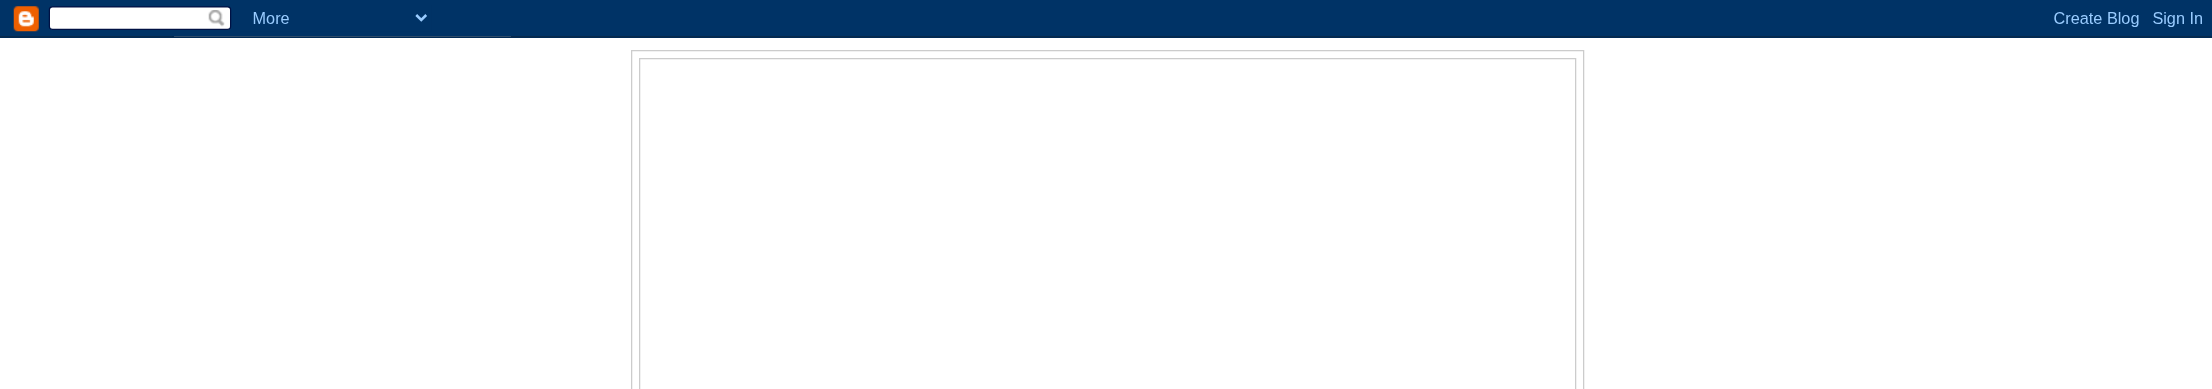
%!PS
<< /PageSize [2212 389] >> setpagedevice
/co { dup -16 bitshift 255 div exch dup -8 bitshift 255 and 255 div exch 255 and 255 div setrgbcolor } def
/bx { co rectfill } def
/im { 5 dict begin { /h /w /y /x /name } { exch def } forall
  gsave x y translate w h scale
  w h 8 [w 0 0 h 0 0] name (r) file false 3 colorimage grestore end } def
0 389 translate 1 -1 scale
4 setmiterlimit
0 0 2212 389 16#FFFFFF bx
(media/1.raw) 0 0 2212 38 im
16#CCCCCC co
631.5 50.5 952 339 rectstroke
639.5 58.5 936 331 rectstroke
showpage
